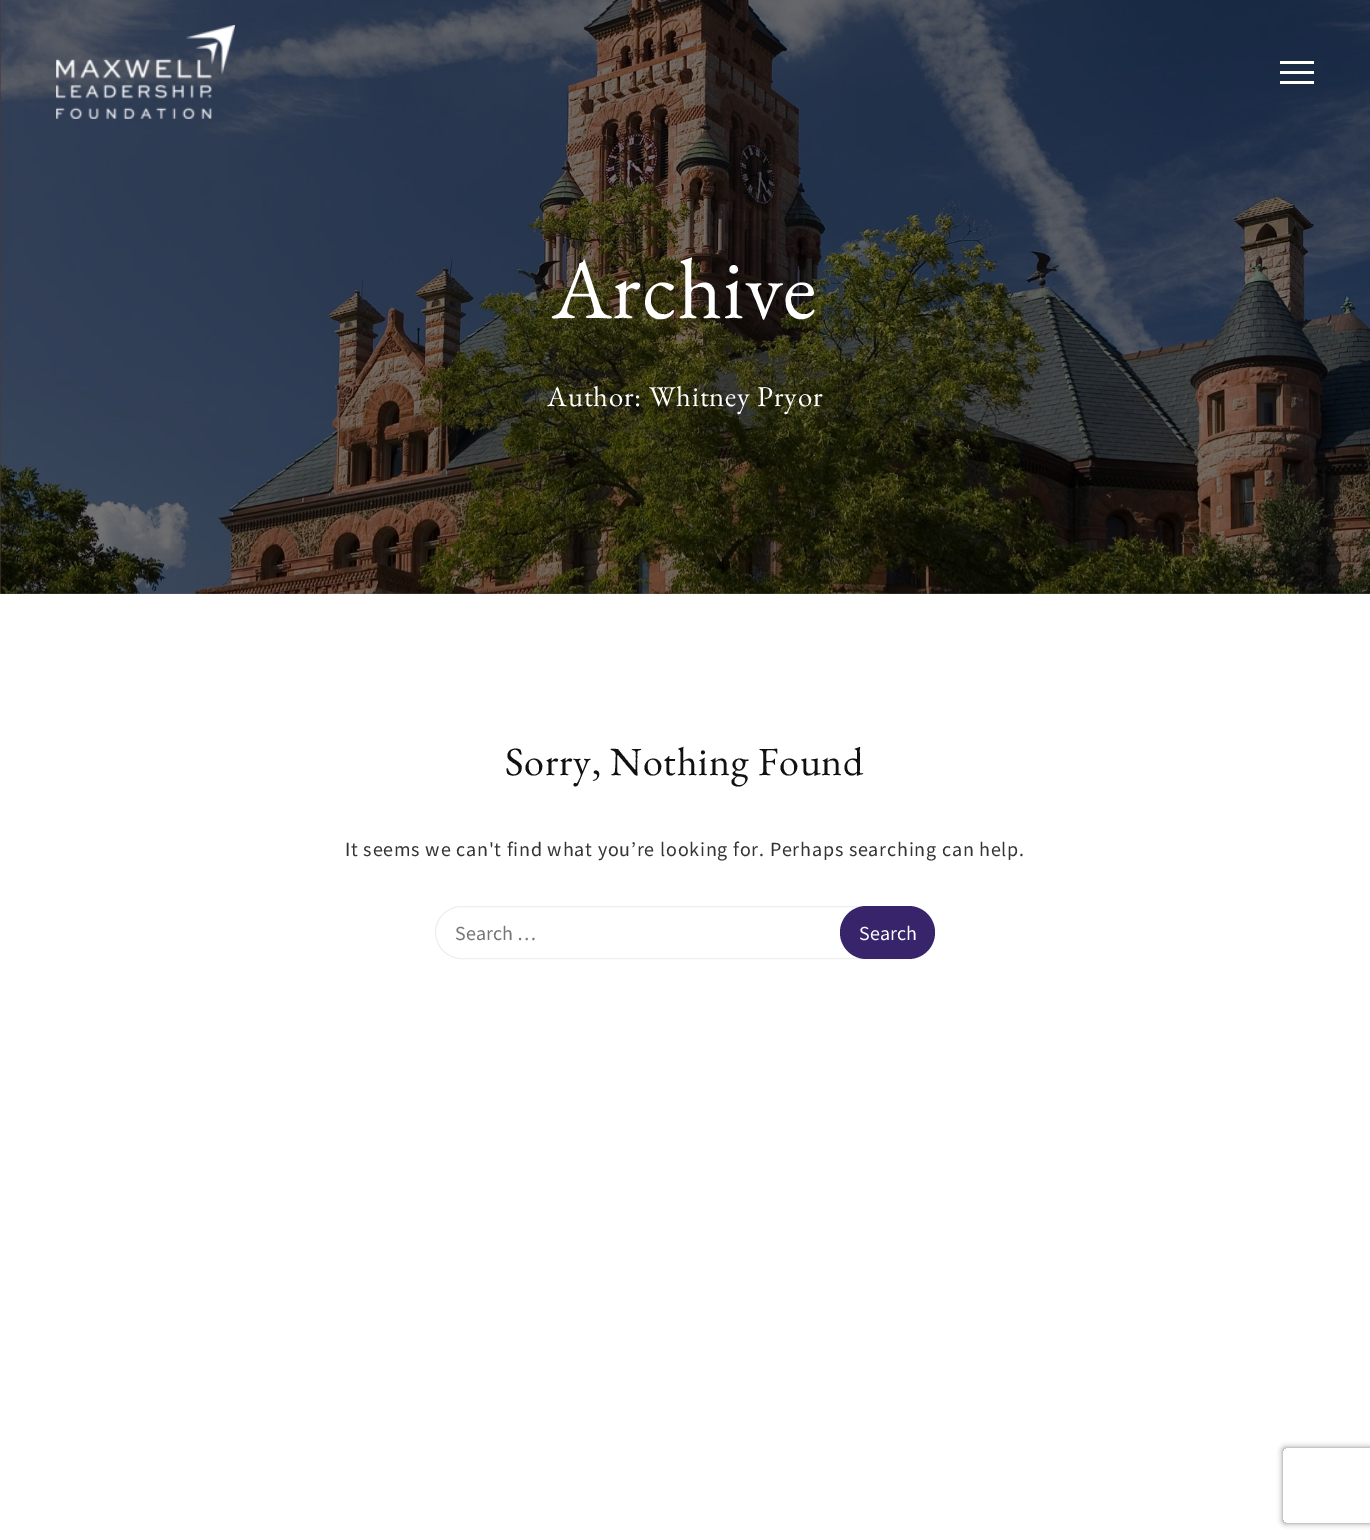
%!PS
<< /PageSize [1370 1540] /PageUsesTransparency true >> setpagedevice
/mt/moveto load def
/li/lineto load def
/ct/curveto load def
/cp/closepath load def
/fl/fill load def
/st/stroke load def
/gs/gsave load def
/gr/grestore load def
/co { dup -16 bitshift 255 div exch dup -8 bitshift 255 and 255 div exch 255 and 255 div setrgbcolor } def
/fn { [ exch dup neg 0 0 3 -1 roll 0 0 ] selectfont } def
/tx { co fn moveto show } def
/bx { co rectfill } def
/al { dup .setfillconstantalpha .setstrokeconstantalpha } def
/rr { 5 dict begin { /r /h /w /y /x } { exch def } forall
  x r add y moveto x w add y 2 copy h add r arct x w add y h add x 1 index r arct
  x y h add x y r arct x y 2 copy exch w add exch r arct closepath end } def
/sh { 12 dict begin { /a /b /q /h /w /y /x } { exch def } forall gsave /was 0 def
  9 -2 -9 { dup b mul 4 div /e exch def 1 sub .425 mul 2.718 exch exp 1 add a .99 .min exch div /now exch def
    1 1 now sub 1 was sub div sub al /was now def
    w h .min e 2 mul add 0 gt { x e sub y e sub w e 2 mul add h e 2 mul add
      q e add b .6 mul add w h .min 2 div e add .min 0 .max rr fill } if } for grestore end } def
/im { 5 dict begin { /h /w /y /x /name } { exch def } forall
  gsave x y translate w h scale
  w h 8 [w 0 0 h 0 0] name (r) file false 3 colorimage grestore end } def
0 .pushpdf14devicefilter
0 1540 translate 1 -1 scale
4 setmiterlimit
0 0 1370 1540 16#FFFFFF bx
(media/2.raw) 0 0 1370 594 im
(media/1.raw) 56 25 179 94 im
1280 61 34 3 16#FFFFFF bx
1280 71 34 3 16#FFFFFF bx
1280 81 34 3 16#FFFFFF bx
16#EEEEEE co
435.5 906.5 499 52 26 rr st
16#37246B co
840 906 95 53 26.5 rr fl
gs
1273 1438 mt 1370 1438 li 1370 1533 li 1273 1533 li cp 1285.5 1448 mt 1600.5 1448 li 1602 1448 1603 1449 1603 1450.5 ct 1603 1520.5 li 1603 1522 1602 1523 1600.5 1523 ct 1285.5 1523 li 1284 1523 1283 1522 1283 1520.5 ct 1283 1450.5 li 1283 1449 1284 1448 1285.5 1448 ct cp eoclip newpath
16#808080 co
1283 1448 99 75 2.5 3 1 sh
gr
/EBGaramond-Regular 86 fn
16#FFFFFF co
552 318 mt .8 0 (Archive) ashow
/EBGaramond-Regular 28.75 fn
547 406 mt .8 0 (Author: Whitney Pryor) ashow
/EBGaramond-Regular 40 fn
16#111111 co
505 775 mt .8 0 (Sorry, Nothing Found) ashow
/SourceSansPro-Regular 20 fn
16#333333 co
345 856 mt .8 0 (It seems we can't find what you’re looking for. Perhaps searching can help.) ashow
(Search …) 455 940 /SourceSansPro-Regular 20 16#757575 tx
(Search) 859 940 /SourceSansPro-Regular 20 16#FFFFFF tx
.poppdf14devicefilter showpage
